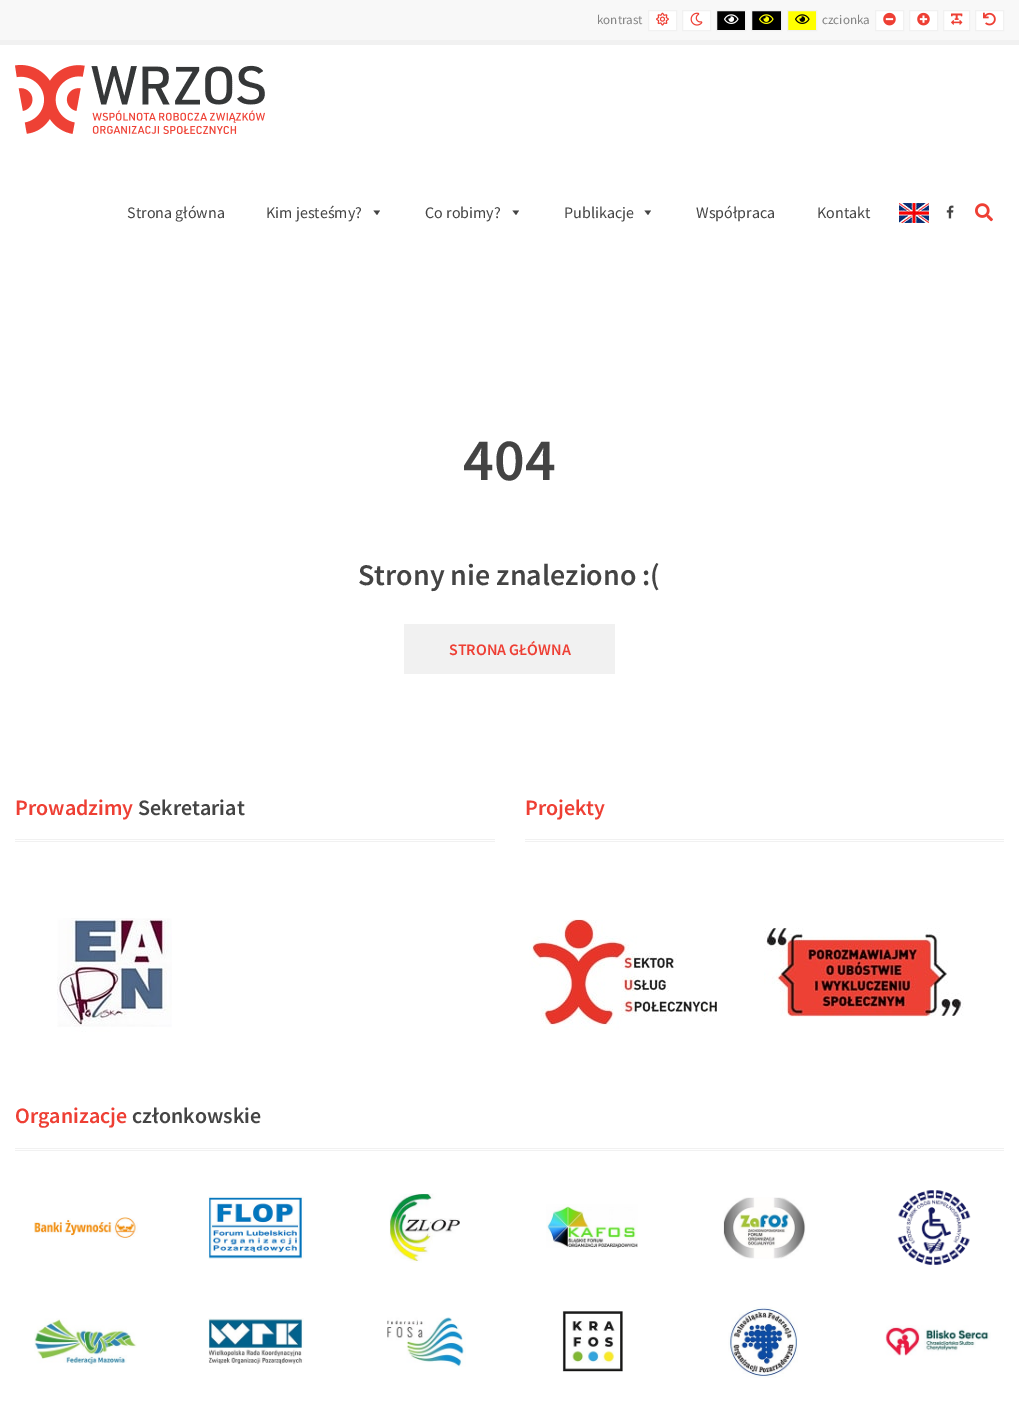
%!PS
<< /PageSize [1019 1402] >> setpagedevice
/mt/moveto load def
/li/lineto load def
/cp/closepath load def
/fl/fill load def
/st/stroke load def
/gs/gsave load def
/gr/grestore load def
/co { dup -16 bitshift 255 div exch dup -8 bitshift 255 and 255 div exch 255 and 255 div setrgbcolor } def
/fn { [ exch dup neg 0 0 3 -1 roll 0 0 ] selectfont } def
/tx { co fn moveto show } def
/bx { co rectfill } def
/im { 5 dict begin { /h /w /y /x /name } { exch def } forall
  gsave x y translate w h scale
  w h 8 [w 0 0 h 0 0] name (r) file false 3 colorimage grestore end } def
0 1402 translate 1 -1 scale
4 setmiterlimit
0 0 1019 1402 16#FFFFFF bx
0 0 1019 40 16#F8F8F8 bx
16#FFFFFF co
648.5 10.5 mt 676.5 10.5 li 676.5 30.5 li 648.5 30.5 li cp gs fl gr
16#F1F1F1 co
st
(media/1.raw) 656 12 13 14 im
16#FFFFFF co
682.5 10.5 mt 710.5 10.5 li 710.5 30.5 li 682.5 30.5 li cp gs fl gr
16#F1F1F1 co
st
(media/2.raw) 690 12 13 14 im
16#000000 co
716.5 10.5 mt 745.5 10.5 li 745.5 30.5 li 716.5 30.5 li cp gs fl gr
16#F1F1F1 co
st
(media/3.raw) 724 14 15 10 im
16#000000 co
751.5 10.5 mt 781.5 10.5 li 781.5 30.5 li 751.5 30.5 li cp gs fl gr
16#F1F1F1 co
st
(media/4.raw) 759 14 15 10 im
16#FFFF00 co
787.5 10.5 mt 816.5 10.5 li 816.5 30.5 li 787.5 30.5 li cp gs fl gr
16#F1F1F1 co
st
(media/5.raw) 795 14 15 10 im
16#FFFFFF co
875.5 10.5 mt 903.5 10.5 li 903.5 30.5 li 875.5 30.5 li cp gs fl gr
16#F1F1F1 co
st
(media/6.raw) 883 12 13 14 im
16#FFFFFF co
909.5 10.5 mt 937.5 10.5 li 937.5 30.5 li 909.5 30.5 li cp gs fl gr
16#F1F1F1 co
st
(media/7.raw) 917 12 13 14 im
16#FFFFFF co
943.5 10.5 mt 969.5 10.5 li 969.5 30.5 li 943.5 30.5 li cp gs fl gr
16#F1F1F1 co
st
(media/8.raw) 951 13 12 12 im
16#FFFFFF co
975.5 10.5 mt 1003.5 10.5 li 1003.5 30.5 li 975.5 30.5 li cp gs fl gr
16#F1F1F1 co
st
(media/9.raw) 983 12 13 14 im
0 40 1019 5 16#F1F1F1 bx
(media/10.raw) 15 65 250 69 im
16#444444 co
380 210.5 mt 377 215 li 373.5 210.5 li cp fl
519 210.5 mt 516 215 li 512.5 210.5 li cp fl
651 210.5 mt 648 215 li 644.5 210.5 li cp fl
(media/11.raw) 899 203 30 20 im
(media/12.raw) 946 205 8 14 im
(media/13.raw) 975 203 18 19 im
404 624 211 50 16#F1F1F1 bx
15 841 480 1 16#F1F1F1 bx
15 839 480 1 16#F1F1F1 bx
(media/14.raw) 57 918 115 114 im
525 841 479 1 16#F1F1F1 bx
525 839 479 1 16#F1F1F1 bx
(media/15.raw) 529 919 188 111 im
(media/16.raw) 764 928 200 89 im
15 1150 989 1 16#F1F1F1 bx
15 1148 989 1 16#F1F1F1 bx
(media/17.raw) 34 1217 104 23 im
(media/18.raw) 208 1196 96 63 im
(media/19.raw) 389 1193 71 70 im
(media/20.raw) 546 1204 92 44 im
(media/21.raw) 723 1197 83 62 im
(media/22.raw) 897 1190 74 75 im
(media/23.raw) 34 1318 103 49 im
(media/24.raw) 208 1318 96 47 im
(media/25.raw) 387 1317 79 50 im
(media/26.raw) 562 1311 61 61 im
(media/27.raw) 728 1307 70 71 im
(media/28.raw) 885 1325 106 31 im
(kontrast) 597 24 /SourceSansPro-Regular 13 16#858585 tx
(czcionka) 822 24 /SourceSansPro-Regular 13 16#858585 tx
(Strona główna) 127 218 /SourceSansPro-Regular 16 16#444444 tx
(Kim jesteśmy?) 266 218 /SourceSansPro-Regular 16 16#444444 tx
(Co robimy?) 425 218 /SourceSansPro-Regular 16 16#444444 tx
(Publikacje) 564 218 /SourceSansPro-Regular 16 16#444444 tx
(Współpraca) 696 218 /SourceSansPro-Regular 16 16#444444 tx
(Kontakt) 817 218 /SourceSansPro-Regular 16 16#444444 tx
(404) 463 480 /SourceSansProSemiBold-SemiBold 60 16#444444 tx
(Strony nie znaleziono :\() 358 585 /SourceSansProSemiBold-SemiBold 30 16#444444 tx
(STRONA GŁÓWNA) 449 655 /SourceSansProSemiBold-SemiBold 16 16#EE3F34 tx
(Prowadzimy) 15 815 /SourceSansProSemiBold-SemiBold 22 16#EE3F34 tx
(Sekretariat) 138 815 /SourceSansProSemiBold-SemiBold 22 16#444444 tx
(Projekty) 525 815 /SourceSansProSemiBold-SemiBold 22 16#EE3F34 tx
(Organizacje) 15 1123 /SourceSansProSemiBold-SemiBold 22 16#EE3F34 tx
(członkowskie) 132 1123 /SourceSansProSemiBold-SemiBold 22 16#444444 tx
showpage
